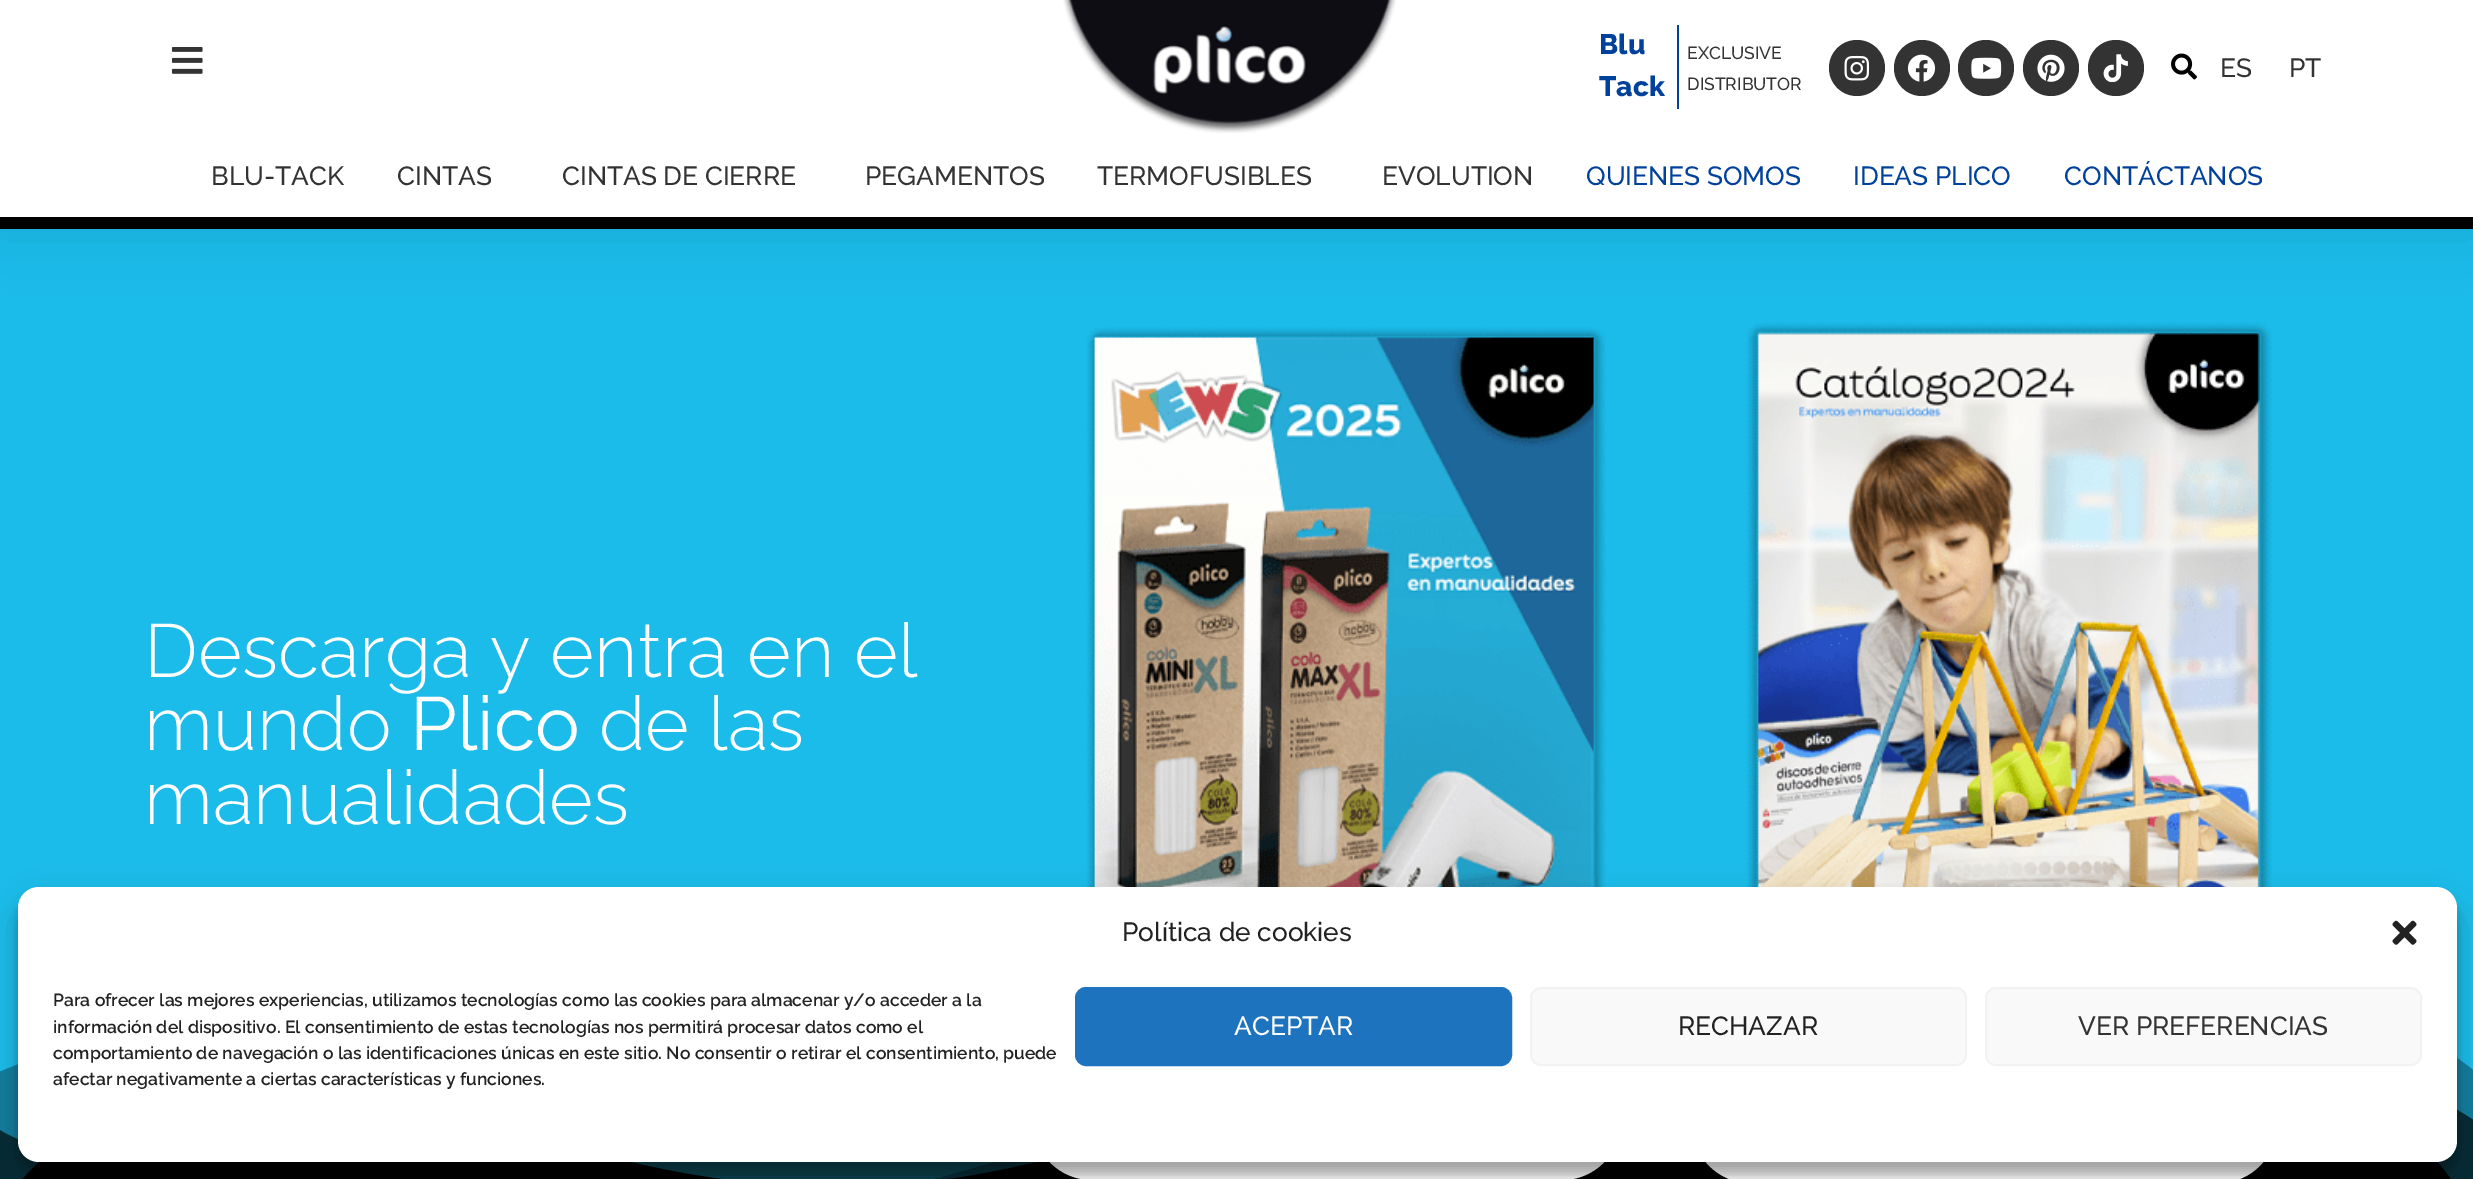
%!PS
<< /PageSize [2473 1179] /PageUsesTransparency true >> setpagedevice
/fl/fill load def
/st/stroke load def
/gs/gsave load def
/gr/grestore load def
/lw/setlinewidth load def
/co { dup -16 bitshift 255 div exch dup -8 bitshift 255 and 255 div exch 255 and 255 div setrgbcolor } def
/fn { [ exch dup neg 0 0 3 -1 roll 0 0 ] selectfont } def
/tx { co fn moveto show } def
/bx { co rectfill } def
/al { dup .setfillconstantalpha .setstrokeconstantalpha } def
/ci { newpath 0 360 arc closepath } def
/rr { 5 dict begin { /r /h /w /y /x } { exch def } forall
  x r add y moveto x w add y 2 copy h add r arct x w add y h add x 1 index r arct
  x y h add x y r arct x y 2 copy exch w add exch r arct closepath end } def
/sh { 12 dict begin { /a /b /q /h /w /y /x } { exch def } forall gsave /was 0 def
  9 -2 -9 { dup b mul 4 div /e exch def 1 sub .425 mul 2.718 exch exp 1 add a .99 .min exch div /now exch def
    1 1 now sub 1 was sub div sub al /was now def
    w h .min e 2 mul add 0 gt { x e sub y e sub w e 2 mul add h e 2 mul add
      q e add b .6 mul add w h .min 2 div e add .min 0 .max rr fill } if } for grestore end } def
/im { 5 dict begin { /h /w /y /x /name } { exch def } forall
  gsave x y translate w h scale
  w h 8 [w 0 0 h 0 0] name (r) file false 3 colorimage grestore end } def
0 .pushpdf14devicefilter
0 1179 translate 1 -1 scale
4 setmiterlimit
0 0 2473 1179 16#000000 bx
0 229 2473 950 16#1BBBEA bx
(media/10.raw) 1746 322 526 565 im
16#000000 co
0 0 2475 217 0 35 .16 sh
0 0 2473 217 16#FFFFFF bx
(media/1.raw) 171 47 32 27 im
(media/2.raw) 1063 0 333 133 im
1677 25 2 84 16#00419B bx
16#333333 co
1857 68 28 ci fl
(media/3.raw) 1844 55 26 26 im
1922 68 28 ci fl
(media/4.raw) 1907 54 29 28 im
1986 68 28 ci fl
(media/5.raw) 1971 57 31 22 im
2051 68 28 ci fl
(media/6.raw) 2037 54 28 28 im
2116 68 28 ci fl
(media/7.raw) 2103 54 25 28 im
(media/8.raw) 2171 53 26 27 im
(media/9.raw) 1086 327 520 560 im
(media/11.raw) 0 1058 2473 121 im
16#FFFFFF co
1033 1062 588 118 59 rr fl
1692 1066 585 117 58.5 rr fl
16#000000 co
18 898 2439 275 21 5 .23 sh
18 905 2439 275 21 17.5 .19 sh
16#FFFFFF co
18 887 2439 275 21 rr fl
(media/12.raw) 2392 920 25 25 im
16#1E73BE co
1076 988 435 77 10 rr gs fl gr
2 lw
st
16#F9F9F9 co
1531 988 435 77 10 rr gs fl gr
16#F2F2F2 co
st
16#F9F9F9 co
1986 988 435 77 10 rr gs fl gr
16#F2F2F2 co
st
(Blu) 1599 54 /Raleway-ExtraBold 28 16#00419B tx
(Tack) 1599 96 /Raleway-ExtraBold 28 16#00419B tx
(EXCLUSIVE) 1687 59 /Raleway-Medium 17.5 16#333333 tx
(DISTRIBUTOR) 1687 90 /Raleway-Medium 17.5 16#333333 tx
(ES) 2220 77 /Raleway-Medium 26.25 16#333333 tx
(PT) 2289 77 /Raleway-Medium 26.25 16#333333 tx
(BLU-TACK) 211 185 /Raleway-Medium 26.25 16#333333 tx
(CINTAS) 397 185 /Raleway-Medium 26.25 16#333333 tx
(CINTAS DE CIERRE) 562 185 /Raleway-Medium 26.25 16#333333 tx
(PEGAMENTOS) 865 185 /Raleway-Medium 26.25 16#333333 tx
(TERMOFUSIBLES) 1097 185 /Raleway-Medium 26.25 16#333333 tx
(EVOLUTION) 1382 185 /Raleway-Medium 26.25 16#333333 tx
(QUIENES SOMOS) 1586 185 /Raleway-Medium 26.25 16#00419B tx
(IDEAS PLICO) 1853 185 /Raleway-Medium 26.25 16#00419B tx
(CONTÁCTANOS) 2064 185 /Raleway-Medium 26.25 16#00419B tx
(Descarga y entra en el) 144 677 /Raleway-Light 75.25 16#FFFFFF tx
(mundo) 144 750 /Raleway-Light 75.25 16#FFFFFF tx
(Plico) 410 750 /Raleway-Regular 75.25 16#FFFFFF tx
(de las) 599 750 /Raleway-Light 75.25 16#FFFFFF tx
(manualidades) 144 824 /Raleway-Light 75.25 16#FFFFFF tx
(Política de cookies) 1122 941 /Raleway-Medium 26.25 16#222222 tx
(Para ofrecer las mejores experiencias, utilizamos tecnologías como las cookies para almacenar y/o acceder a la) 53 1006 /Raleway-SemiBold 17.5 16#222222 tx
(información del dispositivo. El consentimiento de estas tecnologías nos permitirá procesar datos como el) 53 1033 /Raleway-SemiBold 17.5 16#222222 tx
(comportamiento de navegación o las identificaciones únicas en este sitio. No consentir o retirar el consentimiento, puede) 53 1059 /Raleway-SemiBold 17.5 16#222222 tx
(afectar negativamente a ciertas características y funciones.) 53 1085 /Raleway-SemiBold 17.5 16#222222 tx
(ACEPTAR) 1234 1035 /Raleway-Medium 26.25 16#FFFFFF tx
(RECHAZAR) 1678 1035 /Raleway-Medium 26.25 16#222222 tx
(VER PREFERENCIAS) 2078 1035 /Raleway-Medium 26.25 16#333333 tx
.poppdf14devicefilter showpage
